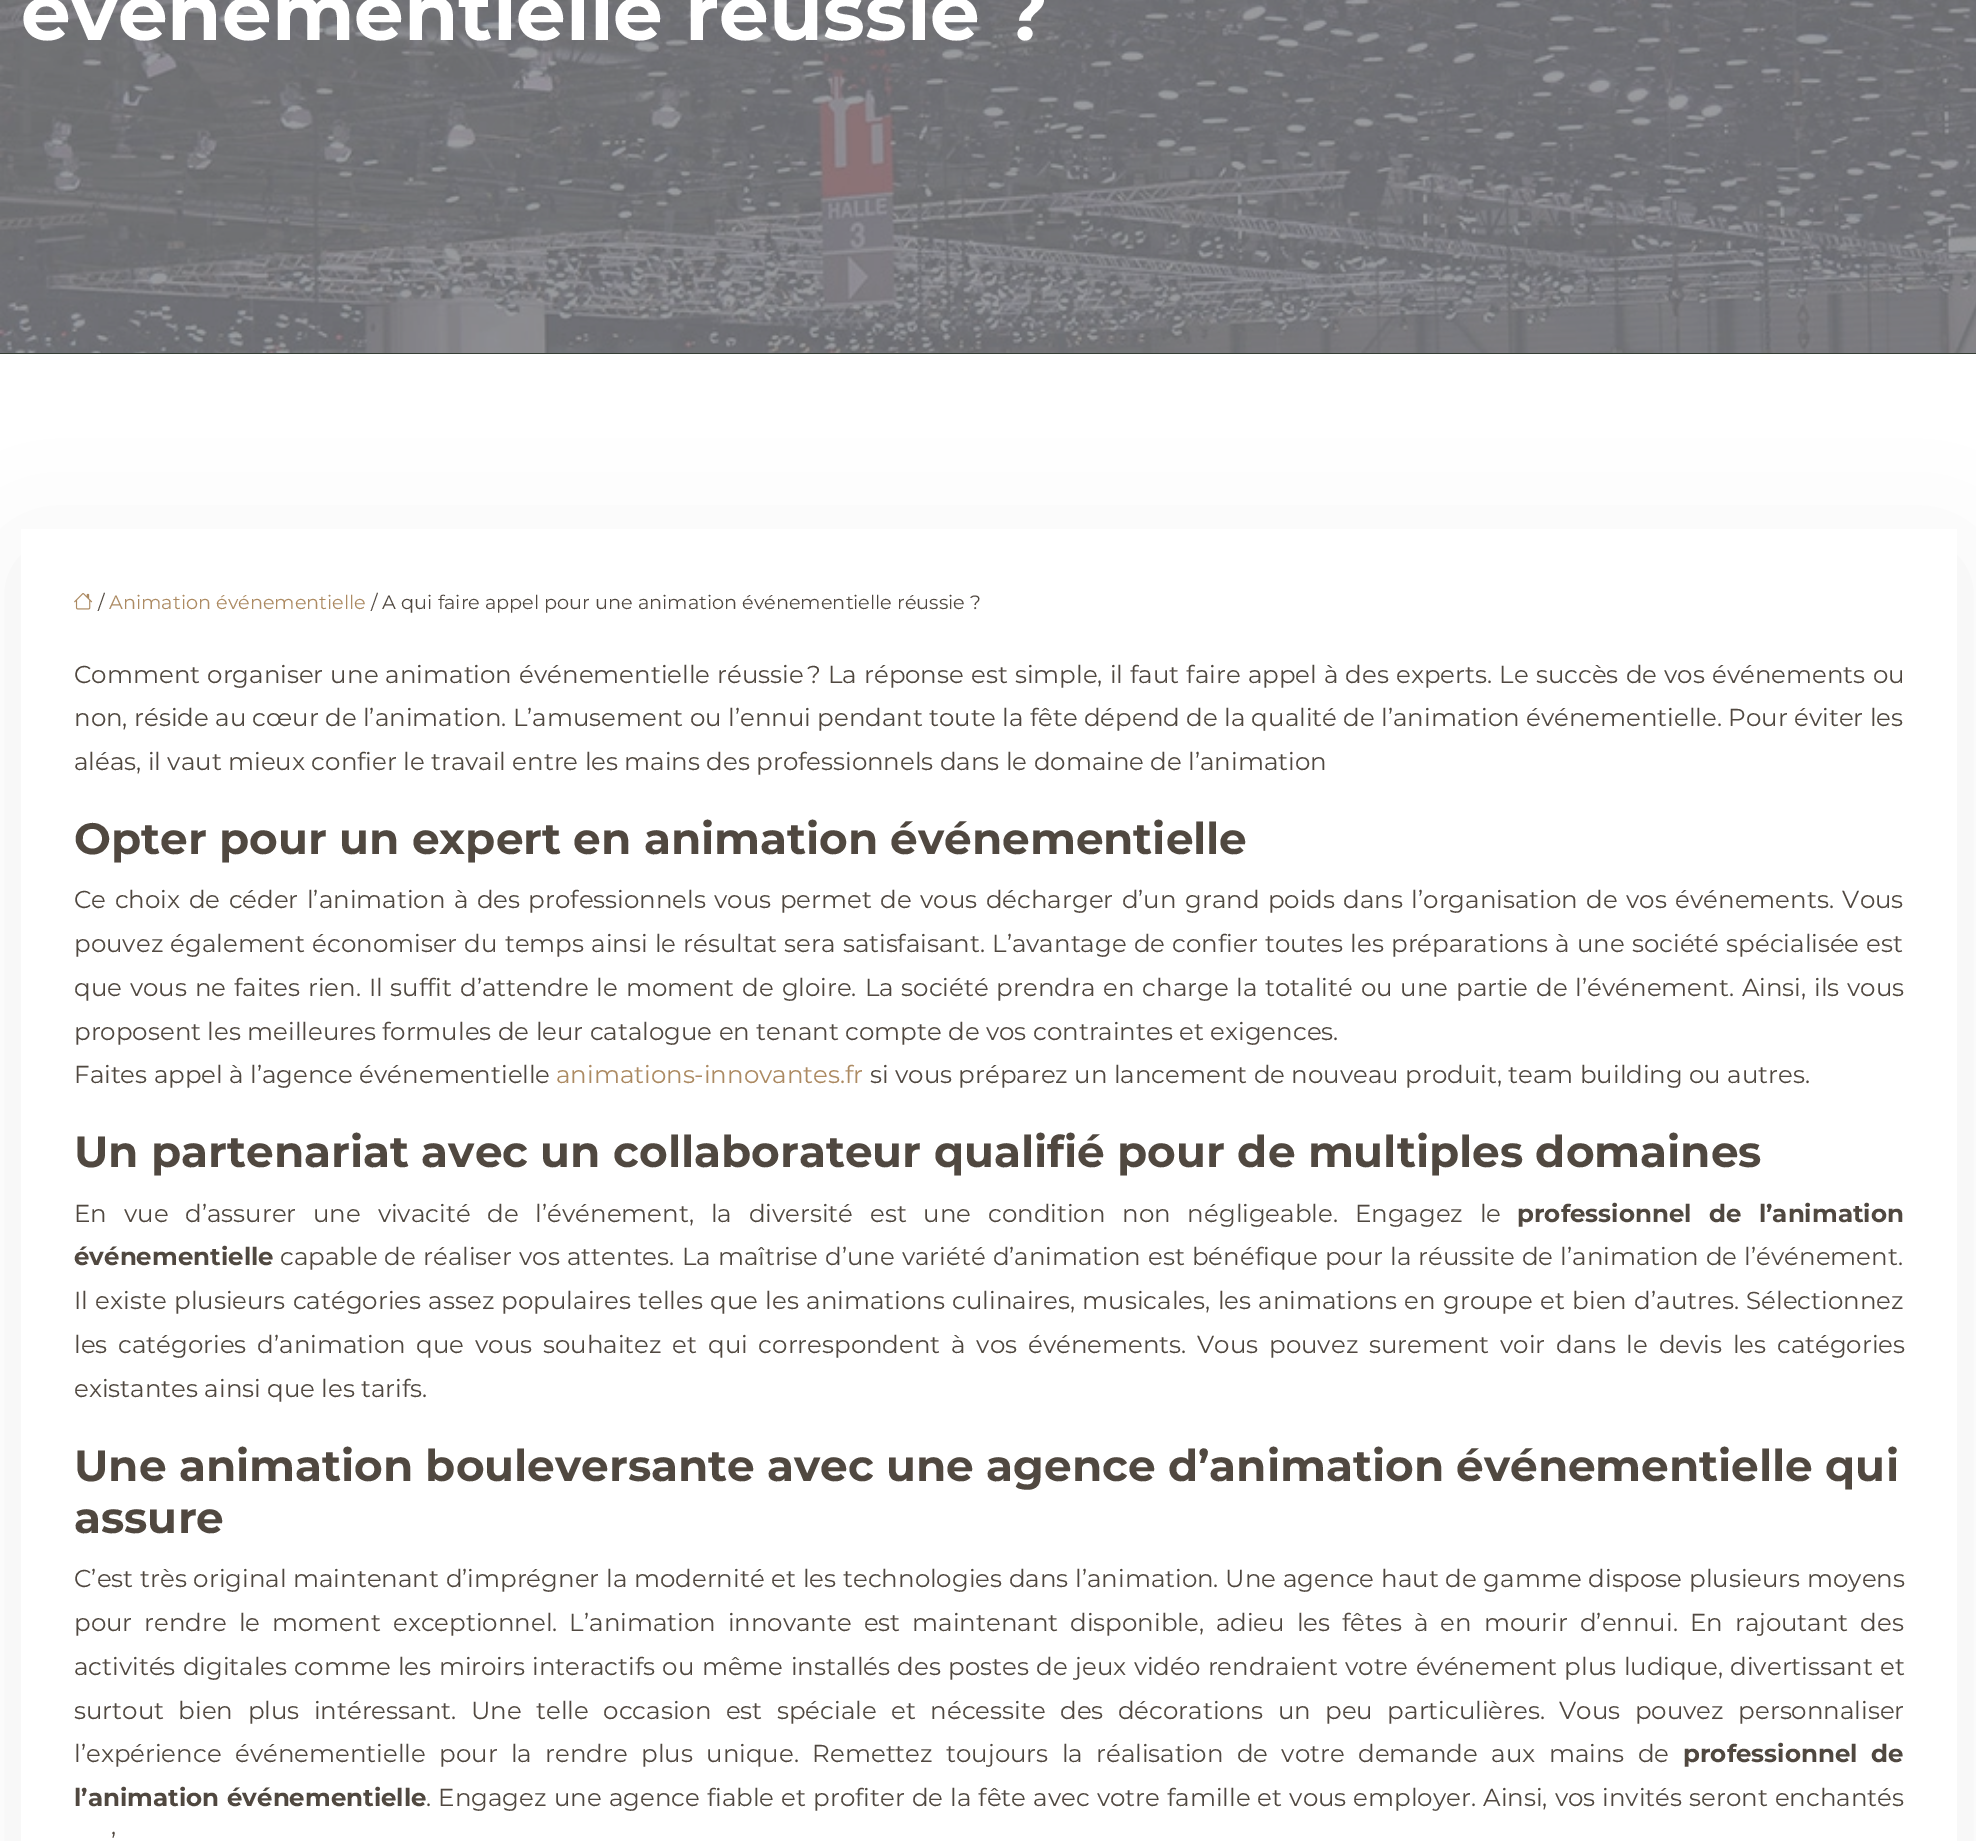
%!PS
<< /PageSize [1976 1841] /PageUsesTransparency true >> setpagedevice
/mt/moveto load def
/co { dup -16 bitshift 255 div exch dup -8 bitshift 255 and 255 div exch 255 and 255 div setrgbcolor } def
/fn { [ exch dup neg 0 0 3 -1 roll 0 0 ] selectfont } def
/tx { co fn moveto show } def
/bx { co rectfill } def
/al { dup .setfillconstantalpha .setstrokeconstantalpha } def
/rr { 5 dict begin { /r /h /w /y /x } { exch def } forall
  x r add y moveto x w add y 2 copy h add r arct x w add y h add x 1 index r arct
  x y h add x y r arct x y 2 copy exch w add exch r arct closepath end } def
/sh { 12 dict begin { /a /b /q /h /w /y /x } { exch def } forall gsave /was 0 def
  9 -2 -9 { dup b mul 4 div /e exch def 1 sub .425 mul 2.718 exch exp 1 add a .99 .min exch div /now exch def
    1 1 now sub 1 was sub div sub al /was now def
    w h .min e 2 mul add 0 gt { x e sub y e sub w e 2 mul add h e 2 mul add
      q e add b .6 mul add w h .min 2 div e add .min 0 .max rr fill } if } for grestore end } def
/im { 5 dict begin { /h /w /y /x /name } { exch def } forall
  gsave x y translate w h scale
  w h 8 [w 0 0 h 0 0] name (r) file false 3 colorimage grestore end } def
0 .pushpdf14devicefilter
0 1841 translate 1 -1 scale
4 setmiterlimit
0 0 1976 1841 16#FFFFFF bx
0 353 1976 1 16#363F36 bx
(media/1.raw) 0 0 1976 353 im
16#000000 co
21 555 1936 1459 0 66.5 .06 sh
21 529 1936 1312 16#FFFFFF bx
(media/2.raw) 74 593 19 17 im
(événementielle réussie ?) 21 40 /Montserrat-Bold 78.75 16#FFFFFF tx
(/) 98 609 /Montserrat-Regular 19.25 16#504840 tx
(Animation événementielle) 109 609 /Montserrat-Regular 19.25 16#AC8A62 tx
(/ A qui faire appel pour une animation événementielle réussie ?) 371 609 /Montserrat-Regular 19.25 16#504840 tx
/Montserrat-Regular 24.5 fn
74 683 mt .75 0 32 (Comment organiser une animation événementielle réussie ? La réponse est simple, il faut faire appel à des experts. Le succès de vos événements ou) widthshow
(non, réside au cœur de l’animation. L’amusement ou l’ennui pendant toute la fête dépend de la qualité de l’animation événementielle. Pour éviter les) 74 726 /Montserrat-Regular 24.5 16#504840 tx
(aléas, il vaut mieux confier le travail entre les mains des professionnels dans le domaine de l’animation) 74 770 /Montserrat-Regular 24.5 16#504840 tx
(Opter pour un expert en animation événementielle) 74 854 /Montserrat-Bold 43.75 16#504840 tx
/Montserrat-Regular 24.5 fn
74 908 mt 2.1 0 32 (Ce choix de céder l’animation à des professionnels vous permet de vous décharger d’un grand poids dans l’organisation de vos événements. Vous) widthshow
74 952 mt .8 0 32 (pouvez également économiser du temps ainsi le résultat sera satisfaisant. L’avantage de confier toutes les préparations à une société spécialisée est) widthshow
74 996 mt 1.45 0 32 (que vous ne faites rien. Il suffit d’attendre le moment de gloire. La société prendra en charge la totalité ou une partie de l’événement. Ainsi, ils vous) widthshow
(proposent les meilleures formules de leur catalogue en tenant compte de vos contraintes et exigences.) 74 1040 /Montserrat-Regular 24.5 16#504840 tx
(Faites appel à l’agence événementielle) 74 1083 /Montserrat-Regular 24.5 16#504840 tx
(animations-innovantes.fr) 556 1083 /Montserrat-Regular 24.5 16#AC8A62 tx
(si vous préparez un lancement de nouveau produit, team building ou autres.) 870 1083 /Montserrat-Regular 24.5 16#504840 tx
(Un partenariat avec un collaborateur qualifié pour de multiples domaines) 74 1167 /Montserrat-Bold 43.75 16#504840 tx
/Montserrat-Regular 24.5 fn
74 1222 mt 10.4 0 32 (En vue d’assurer une vivacité de l’événement, la diversité est une condition non négligeable. Engagez le) widthshow
/Montserrat-Bold 24.5 fn
1517 1222 mt 10.4 0 32 (professionnel de l’animation) widthshow
(événementielle) 74 1265 /Montserrat-Bold 24.5 16#504840 tx
/Montserrat-Regular 24.5 fn
280 1265 mt .75 0 32 (capable de réaliser vos attentes. La maîtrise d’une variété d’animation est bénéfique pour la réussite de l’animation de l’événement.) widthshow
74 1309 mt 1 0 32 (Il existe plusieurs catégories assez populaires telles que les animations culinaires, musicales, les animations en groupe et bien d’autres. Sélectionnez) widthshow
74 1353 mt 4.4 0 32 (les catégories d’animation que vous souhaitez et qui correspondent à vos événements. Vous pouvez surement voir dans le devis les catégories) widthshow
(existantes ainsi que les tarifs.) 74 1397 /Montserrat-Regular 24.5 16#504840 tx
(Une animation bouleversante avec une agence d’animation événementielle qui) 74 1481 /Montserrat-Bold 43.75 16#504840 tx
(assure) 74 1533 /Montserrat-Bold 43.75 16#504840 tx
/Montserrat-Regular 24.5 fn
74 1587 mt .4 0 32 (C’est très original maintenant d’imprégner la modernité et les technologies dans l’animation. Une agence haut de gamme dispose plusieurs moyens) widthshow
74 1631 mt 5.6 0 32 (pour rendre le moment exceptionnel. L’animation innovante est maintenant disponible, adieu les fêtes à en mourir d’ennui. En rajoutant des) widthshow
74 1675 mt 1 0 32 (activités digitales comme les miroirs interactifs ou même installés des postes de jeux vidéo rendraient votre événement plus ludique, divertissant et) widthshow
74 1719 mt 8.1 0 32 (surtout bien plus intéressant. Une telle occasion est spéciale et nécessite des décorations un peu particulières. Vous pouvez personnaliser) widthshow
74 1762 mt 7 0 32 (l’expérience événementielle pour la rendre plus unique. Remettez toujours la réalisation de votre demande aux mains de) widthshow
/Montserrat-Bold 24.5 fn
1683 1762 mt 7 0 32 (professionnel de) widthshow
74 1806 mt 1 0 32 (l’animation événementielle) widthshow
/Montserrat-Regular 24.5 fn
426 1806 mt .7 0 32 (. Engagez une agence fiable et profiter de la fête avec votre famille et vous employer. Ainsi, vos invités seront enchantés) widthshow
(’) 111 1850 /Montserrat-Regular 24.5 16#504840 tx
.poppdf14devicefilter showpage
